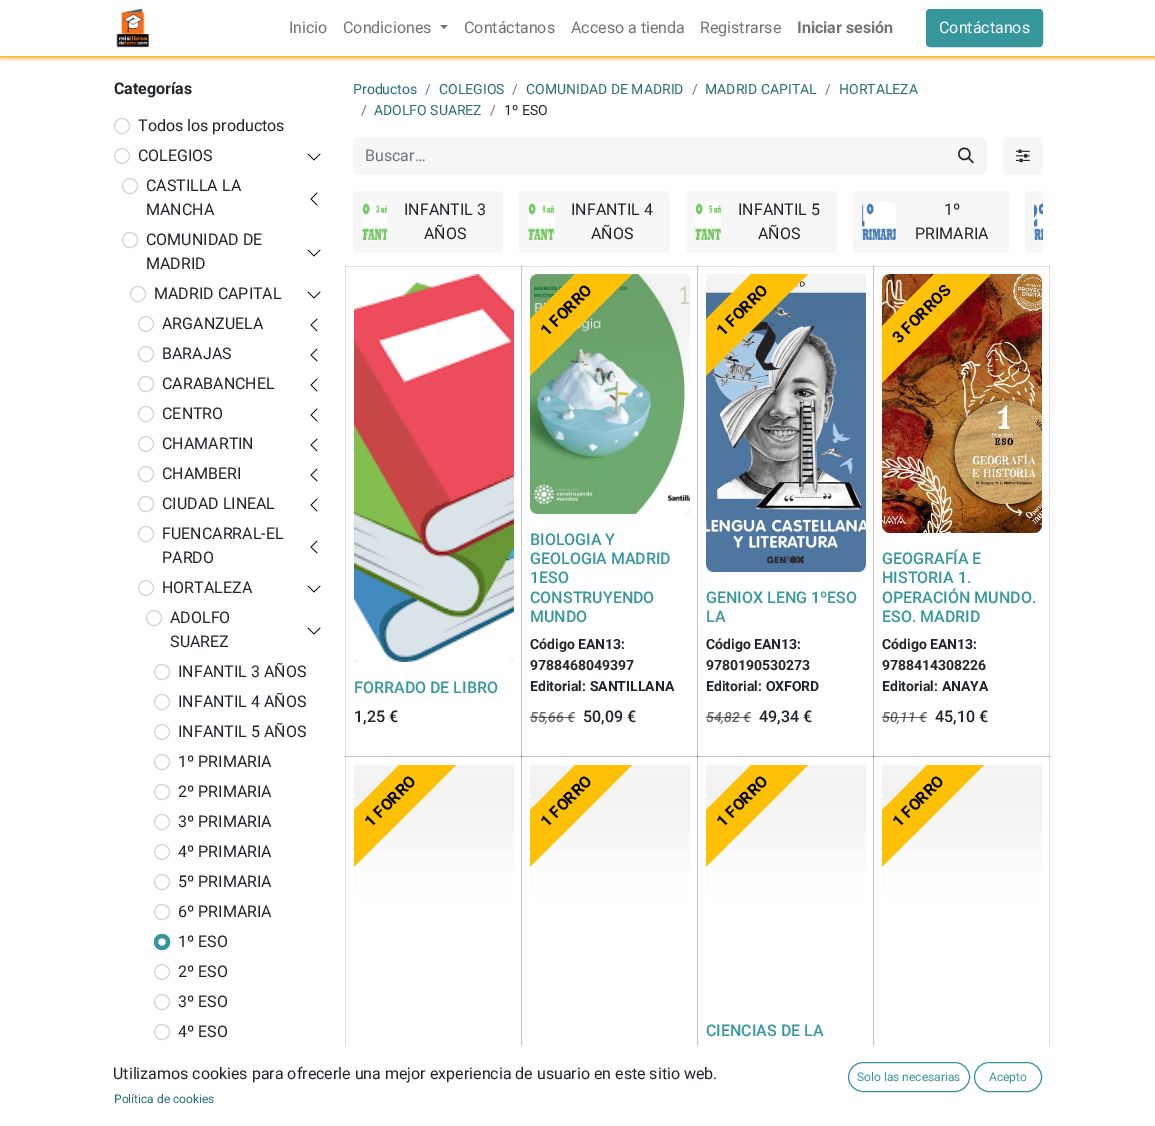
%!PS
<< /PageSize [1155 1126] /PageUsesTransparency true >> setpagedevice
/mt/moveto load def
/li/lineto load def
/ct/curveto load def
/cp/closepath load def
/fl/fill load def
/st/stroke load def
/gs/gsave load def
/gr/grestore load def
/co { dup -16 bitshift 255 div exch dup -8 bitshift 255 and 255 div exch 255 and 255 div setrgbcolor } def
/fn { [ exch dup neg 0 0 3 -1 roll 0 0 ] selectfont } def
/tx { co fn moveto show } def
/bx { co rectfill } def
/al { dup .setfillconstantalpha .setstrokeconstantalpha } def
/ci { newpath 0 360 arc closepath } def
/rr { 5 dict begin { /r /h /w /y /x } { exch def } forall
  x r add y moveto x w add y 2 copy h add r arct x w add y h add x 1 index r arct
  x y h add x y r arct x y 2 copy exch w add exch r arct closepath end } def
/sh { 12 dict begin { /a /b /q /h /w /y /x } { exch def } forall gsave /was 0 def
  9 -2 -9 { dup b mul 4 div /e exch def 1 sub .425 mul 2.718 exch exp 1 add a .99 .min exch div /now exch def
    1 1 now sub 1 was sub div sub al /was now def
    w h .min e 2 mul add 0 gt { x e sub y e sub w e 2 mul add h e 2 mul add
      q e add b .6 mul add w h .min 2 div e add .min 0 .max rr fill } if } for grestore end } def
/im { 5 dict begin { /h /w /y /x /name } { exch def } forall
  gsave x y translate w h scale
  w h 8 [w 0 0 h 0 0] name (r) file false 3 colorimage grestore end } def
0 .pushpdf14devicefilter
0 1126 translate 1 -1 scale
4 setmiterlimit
0 0 1155 1126 16#FFFFFF bx
345 266 1 780 16#E0E0E0 bx
345 266 177 1 16#E0E0E0 bx
345 266 1 1 16#C5C5C5 bx
521 266 1 491 16#C5C5C5 bx
521 266 177 1 16#E0E0E0 bx
521 266 1 1 16#989898 bx
697 266 1 491 16#C5C5C5 bx
697 266 177 1 16#E0E0E0 bx
697 266 1 1 16#989898 bx
873 266 1 491 16#C5C5C5 bx
1049 266 1 780 16#E0E0E0 bx
345 756 177 1 16#C5C5C5 bx
345 756 1 1 16#989898 bx
521 756 1 290 16#C5C5C5 bx
521 756 177 1 16#C5C5C5 bx
521 756 1 1 16#5C5C5C bx
697 756 1 290 16#C5C5C5 bx
697 756 177 1 16#C5C5C5 bx
697 756 1 1 16#5C5C5C bx
873 756 1 290 16#C5C5C5 bx
gs
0 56 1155 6 rectclip
16#FF9C00 co
0 2 1155 56 0 2 1 sh
gr
(media/1.raw) 116 8 33 40 im
16#737373 co
440 25 mt 448 25 li 444 29 li cp fl
16#35979C co
926.5 9.5 116 37 3.5 rr gs fl gr
st
16#CED4DA co
122 126 7.5 ci st
122 156 7.5 ci st
(media/2.raw) 307 153 14 8 im
130 186 7.5 ci st
(media/3.raw) 310 192 8 14 im
130 240 7.5 ci st
(media/2.raw) 307 249 14 8 im
138 294 7.5 ci st
(media/2.raw) 307 291 14 8 im
146 324 7.5 ci st
(media/3.raw) 310 318 8 14 im
146 354 7.5 ci st
(media/3.raw) 310 348 8 14 im
146 384 7.5 ci st
(media/3.raw) 310 378 8 14 im
146 414 7.5 ci st
(media/3.raw) 310 408 8 14 im
146 444 7.5 ci st
(media/3.raw) 310 438 8 14 im
146 474 7.5 ci st
(media/3.raw) 310 468 8 14 im
146 504 7.5 ci st
(media/3.raw) 310 498 8 14 im
146 534 7.5 ci st
(media/3.raw) 310 540 8 14 im
146 588 7.5 ci st
(media/2.raw) 307 585 14 8 im
154 618 7.5 ci st
(media/2.raw) 307 627 14 8 im
162 672 7.5 ci st
162 702 7.5 ci st
162 732 7.5 ci st
162 762 7.5 ci st
162 792 7.5 ci st
162 822 7.5 ci st
162 852 7.5 ci st
162 882 7.5 ci st
162 912 7.5 ci st
16#35979C co
162 942 8 ci fl
16#FFFFFF co
162 942 3.5 ci fl
16#35979C co
162 942 7.5 ci st
16#CED4DA co
162 972 7.5 ci st
162 1002 7.5 ci st
162 1032 7.5 ci st
16#F7F7F7 co
357 137 mt 946 137 li 946 175 li 357 175 li 355 175 353 173 353 171 ct 353 141 li 353 139 355 137 357 137 ct cp fl
1003 137 40 38 4 rr fl
353 191 150 62 4 rr fl
519 191 151 62 4 rr fl
(media/7.raw) 528 202 26 40 im
686 191 151 62 4 rr fl
(media/8.raw) 695 202 26 40 im
853 191 156 62 4 rr fl
(media/9.raw) 862 202 34 40 im
gs
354 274 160 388 rectclip
16#000000 co
362 290 144 372 0 8 .28 sh
16#35979C co
359 292 150 378 2.5 13.5 .1 sh
gr
(media/11.raw) 354 274 160 388 im
gs
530 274 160 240 rectclip
16#000000 co
538 290 144 224 0 8 .28 sh
16#35979C co
535 292 150 230 2.5 13.5 .1 sh
gr
(media/12.raw) 530 274 160 240 im
(media/6.raw) 362 202 25 40 im
gs
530 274 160 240 rectclip
16#000000 co
404 251 325 100 0 35 .05 sh
gr
gs
530 274 160 240 rectclip
16#FFC107 co
459 390 mt 646 203 li 674 232 li 487 419 li cp fl
gr
873 266 177 1 16#DFDFDF bx
873 266 1 1 16#979797 bx
gs
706 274 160 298 rectclip
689 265 mt 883 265 li 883 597 li 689 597 li cp 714 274 mt 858 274 li 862.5 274 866 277.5 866 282 ct 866 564 li 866 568.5 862.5 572 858 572 ct 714 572 li 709.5 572 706 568.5 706 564 ct 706 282 li 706 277.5 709.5 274 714 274 ct cp eoclip newpath
16#000000 co
714 290 144 282 0 8 .28 sh
gr
(media/13.raw) 706 281 160 291 im
gs
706 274 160 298 rectclip
16#000000 co
580 251 325 100 0 35 .05 sh
gr
(media/5.raw) 1016 149 14 14 im
16#F7F7F7 co
1029 191 mt 1043 191 li 1043 253 li 1029 253 li 1027 253 1025 251 1025 249 ct 1025 195 li 1025 193 1027 191 1029 191 ct cp fl
(media/10.raw) 1034 202 9 40 im
gs
706 274 160 298 rectclip
16#FFC107 co
635 390 mt 822 203 li 850 232 li 663 419 li cp fl
gr
1049 266 1 1 16#C4C4C4 bx
gs
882 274 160 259 rectclip
16#000000 co
890 290 144 243 0 8 .28 sh
16#35979C co
887 292 150 249 2.5 13.5 .1 sh
gr
(media/14.raw) 882 274 160 259 im
gs
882 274 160 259 rectclip
16#000000 co
755 254 334 100 0 35 .05 sh
gr
16#F7F7F7 co
945 137 mt 983 137 li 985 137 987 139 987 141 ct 987 171 li 987 173 985 175 983 175 ct 945 175 li cp fl
(media/4.raw) 958 147 16 17 im
gs
882 274 160 259 rectclip
16#FFC107 co
811 397 mt 1005 203 li 1033 232 li 839 426 li cp fl
gr
873 756 177 1 16#C4C4C4 bx
873 756 1 1 16#5B5B5B bx
1049 756 1 1 16#979797 bx
16#35979C co
848.5 1062.5 121 29 14.5 rr st
974.5 1062.5 67 29 14.5 rr st
(Inicio) 289 33 /Roboto-Regular 16 16#737373 tx
(Condiciones) 343 33 /Roboto-Regular 16 16#737373 tx
(Contáctanos) 464 33 /Roboto-Regular 16 16#737373 tx
(Acceso a tienda) 571 33 /Roboto-Regular 16 16#737373 tx
(Registrarse) 700 33 /Roboto-Regular 16 16#737373 tx
(Iniciar sesión) 797 33 /Roboto-Bold 16 16#737373 tx
(Contáctanos) 939 33 /Roboto-Regular 16 16#FFFFFF tx
(Categorías) 114 94 /Roboto-Bold 16 16#212529 tx
(Todos los productos) 138 131 /Roboto-Regular 16 16#212529 tx
(COLEGIOS) 138 161 /Roboto-Regular 16 16#212529 tx
(CASTILLA LA) 146 191 /Roboto-Regular 16 16#212529 tx
(MANCHA) 146 215 /Roboto-Regular 16 16#212529 tx
(COMUNIDAD DE) 146 245 /Roboto-Regular 16 16#212529 tx
(MADRID) 146 269 /Roboto-Regular 16 16#212529 tx
(MADRID CAPITAL) 154 299 /Roboto-Regular 16 16#212529 tx
(ARGANZUELA) 162 329 /Roboto-Regular 16 16#212529 tx
(BARAJAS) 162 359 /Roboto-Regular 16 16#212529 tx
(CARABANCHEL) 162 389 /Roboto-Regular 16 16#212529 tx
(CENTRO) 162 419 /Roboto-Regular 16 16#212529 tx
(CHAMARTIN) 162 449 /Roboto-Regular 16 16#212529 tx
(CHAMBERI) 162 479 /Roboto-Regular 16 16#212529 tx
(CIUDAD LINEAL) 162 509 /Roboto-Regular 16 16#212529 tx
(FUENCARRAL-EL) 162 539 /Roboto-Regular 16 16#212529 tx
(PARDO) 162 563 /Roboto-Regular 16 16#212529 tx
(HORTALEZA) 162 593 /Roboto-Regular 16 16#212529 tx
(ADOLFO) 170 623 /Roboto-Regular 16 16#212529 tx
(SUAREZ) 170 647 /Roboto-Regular 16 16#212529 tx
(INFANTIL 3 AÑOS) 178 677 /Roboto-Regular 16 16#212529 tx
(INFANTIL 4 AÑOS) 178 707 /Roboto-Regular 16 16#212529 tx
(INFANTIL 5 AÑOS) 178 737 /Roboto-Regular 16 16#212529 tx
(1º PRIMARIA) 178 767 /Roboto-Regular 16 16#212529 tx
(2º PRIMARIA) 178 797 /Roboto-Regular 16 16#212529 tx
(3º PRIMARIA) 178 827 /Roboto-Regular 16 16#212529 tx
(4º PRIMARIA) 178 857 /Roboto-Regular 16 16#212529 tx
(5º PRIMARIA) 178 887 /Roboto-Regular 16 16#212529 tx
(6º PRIMARIA) 178 917 /Roboto-Regular 16 16#212529 tx
(1º ESO) 178 947 /Roboto-Regular 16 16#212529 tx
(2º ESO) 178 977 /Roboto-Regular 16 16#212529 tx
(3º ESO) 178 1007 /Roboto-Regular 16 16#212529 tx
(4º ESO) 178 1037 /Roboto-Regular 16 16#212529 tx
(Productos) 353 94 /Roboto-Regular 14 16#276E72 tx
(/) 425 94 /Roboto-Regular 14 16#6C757D tx
(COLEGIOS) 439 94 /Roboto-Regular 14 16#276E72 tx
(/) 512 94 /Roboto-Regular 14 16#6C757D tx
(COMUNIDAD DE MADRID) 526 94 /Roboto-Regular 14 16#276E72 tx
(/) 692 94 /Roboto-Regular 14 16#6C757D tx
(MADRID CAPITAL) 705 94 /Roboto-Regular 14 16#276E72 tx
(/) 825 94 /Roboto-Regular 14 16#6C757D tx
(HORTALEZA) 839 94 /Roboto-Regular 14 16#276E72 tx
(/) 361 115 /Roboto-Regular 14 16#6C757D tx
(ADOLFO SUAREZ) 374 115 /Roboto-Regular 14 16#276E72 tx
(/) 490 115 /Roboto-Regular 14 16#6C757D tx
(1º ESO) 504 115 /Roboto-Regular 14 16#212529 tx
(Buscar…) 365 161 /Roboto-Regular 16 16#6C757D tx
(INFANTIL 3) 404 215 /Roboto-Regular 16 16#212529 tx
(AÑOS) 424 239 /Roboto-Regular 16 16#212529 tx
(INFANTIL 4) 571 215 /Roboto-Regular 16 16#212529 tx
(AÑOS) 591 239 /Roboto-Regular 16 16#212529 tx
(INFANTIL 5) 738 215 /Roboto-Regular 16 16#212529 tx
(AÑOS) 758 239 /Roboto-Regular 16 16#212529 tx
(1º) 944 215 /Roboto-Regular 16 16#212529 tx
(PRIMARIA) 915 239 /Roboto-Regular 16 16#212529 tx
(FORRADO DE LIBRO) 354 693 /Roboto-Medium 16 16#35979C tx
(1,25 €) 354 722 /Roboto-Medium 16 16#212529 tx
/Roboto-Bold 16 fn
16#000000 co
gs 547 337 translate -45 rotate 0 0 mt (1 FORRO) show gr
(BIOLOGIA Y) 530 545 /Roboto-Medium 16 16#35979C tx
(GEOLOGIA MADRID) 530 564 /Roboto-Medium 16 16#35979C tx
(1ESO) 530 583 /Roboto-Medium 16 16#35979C tx
(CONSTRUYENDO) 530 603 /Roboto-Medium 16 16#35979C tx
(MUNDO) 530 622 /Roboto-Medium 16 16#35979C tx
(Código EAN13:) 530 649 /Roboto-Bold 14 16#212529 tx
(9788468049397) 530 670 /Roboto-Bold 14 16#212529 tx
(Editorial: SANTILLANA) 530 691 /Roboto-Bold 14 16#212529 tx
(55,66 €) 530 722 /Roboto-MediumItalic 14 16#646669 tx
0.7 al
530 717 33 1 16#212529 bx
563 717 12 1 16#212529 bx
1 al
(50,09 €) 583 722 /Roboto-Medium 16 16#212529 tx
/Roboto-Bold 16 fn
16#000000 co
gs 723 337 translate -45 rotate 0 0 mt (1 FORRO) show gr
(GENIOX LENG 1ºESO) 706 603 /Roboto-Medium 16 16#35979C tx
(LA) 706 622 /Roboto-Medium 16 16#35979C tx
(Código EAN13:) 706 649 /Roboto-Bold 14 16#212529 tx
(9780190530273) 706 670 /Roboto-Bold 14 16#212529 tx
(Editorial: OXFORD) 706 691 /Roboto-Bold 14 16#212529 tx
(54,82 €) 706 722 /Roboto-MediumItalic 14 16#646669 tx
0.7 al
706 717 33 1 16#212529 bx
739 717 12 1 16#212529 bx
1 al
(49,34 €) 759 722 /Roboto-Medium 16 16#212529 tx
/Roboto-Bold 16 fn
16#000000 co
gs 899 344 translate -45 rotate 0 0 mt (3 FORROS) show gr
(GEOGRAFÍA E) 882 564 /Roboto-Medium 16 16#35979C tx
(HISTORIA 1.) 882 583 /Roboto-Medium 16 16#35979C tx
(OPERACIÓN MUNDO.) 882 603 /Roboto-Medium 16 16#35979C tx
(ESO. MADRID) 882 622 /Roboto-Medium 16 16#35979C tx
(Código EAN13:) 882 649 /Roboto-Bold 14 16#212529 tx
(9788414308226) 882 670 /Roboto-Bold 14 16#212529 tx
(Editorial: ANAYA) 882 691 /Roboto-Bold 14 16#212529 tx
(50,11 €) 882 722 /Roboto-MediumItalic 14 16#646669 tx
0.7 al
882 717 33 1 16#212529 bx
915 717 12 1 16#212529 bx
1 al
(45,10 €) 935 722 /Roboto-Medium 16 16#212529 tx
gs
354 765 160 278 rectclip
16#000000 co
228 742 325 100 0 35 .05 sh
gr
gs
354 765 160 278 rectclip
16#FFC107 co
283 881 mt 470 694 li 498 723 li 311 910 li cp fl
gr
/Roboto-Bold 16 fn
16#000000 co
gs 371 828 translate -45 rotate 0 0 mt (1 FORRO) show gr
gs
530 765 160 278 rectclip
404 742 325 100 0 35 .05 sh
gr
gs
530 765 160 278 rectclip
16#FFC107 co
459 881 mt 646 694 li 674 723 li 487 910 li cp fl
gr
gs 547 828 translate -45 rotate 0 0 mt (1 FORRO) show gr
gs
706 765 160 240 rectclip
580 742 325 100 0 35 .05 sh
gr
gs
706 765 160 240 rectclip
16#FFC107 co
635 881 mt 822 694 li 850 723 li 663 910 li cp fl
gr
gs 723 828 translate -45 rotate 0 0 mt (1 FORRO) show gr
(CIENCIAS DE LA) 706 1036 /Roboto-Medium 16 16#35979C tx
gs
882 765 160 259 rectclip
16#000000 co
756 742 325 100 0 35 .05 sh
gr
gs
882 765 160 259 rectclip
16#FFC107 co
811 881 mt 998 694 li 1026 723 li 839 910 li cp fl
gr
/Roboto-Bold 16 fn
16#000000 co
gs 899 828 translate -45 rotate 0 0 mt (1 FORRO) show gr
(Utilizamos cookies para ofrecerle una mejor experiencia de usuario en este sitio web.) 113 1079 /Roboto-Regular 16 16#212529 tx
(Política de cookies) 114 1103 /Roboto-Regular 12 16#276E72 tx
(Solo las necesarias) 857 1081 /Roboto-Regular 12 16#35979C tx
(Acepto) 989 1081 /Roboto-Regular 12 16#35979C tx
.poppdf14devicefilter showpage
